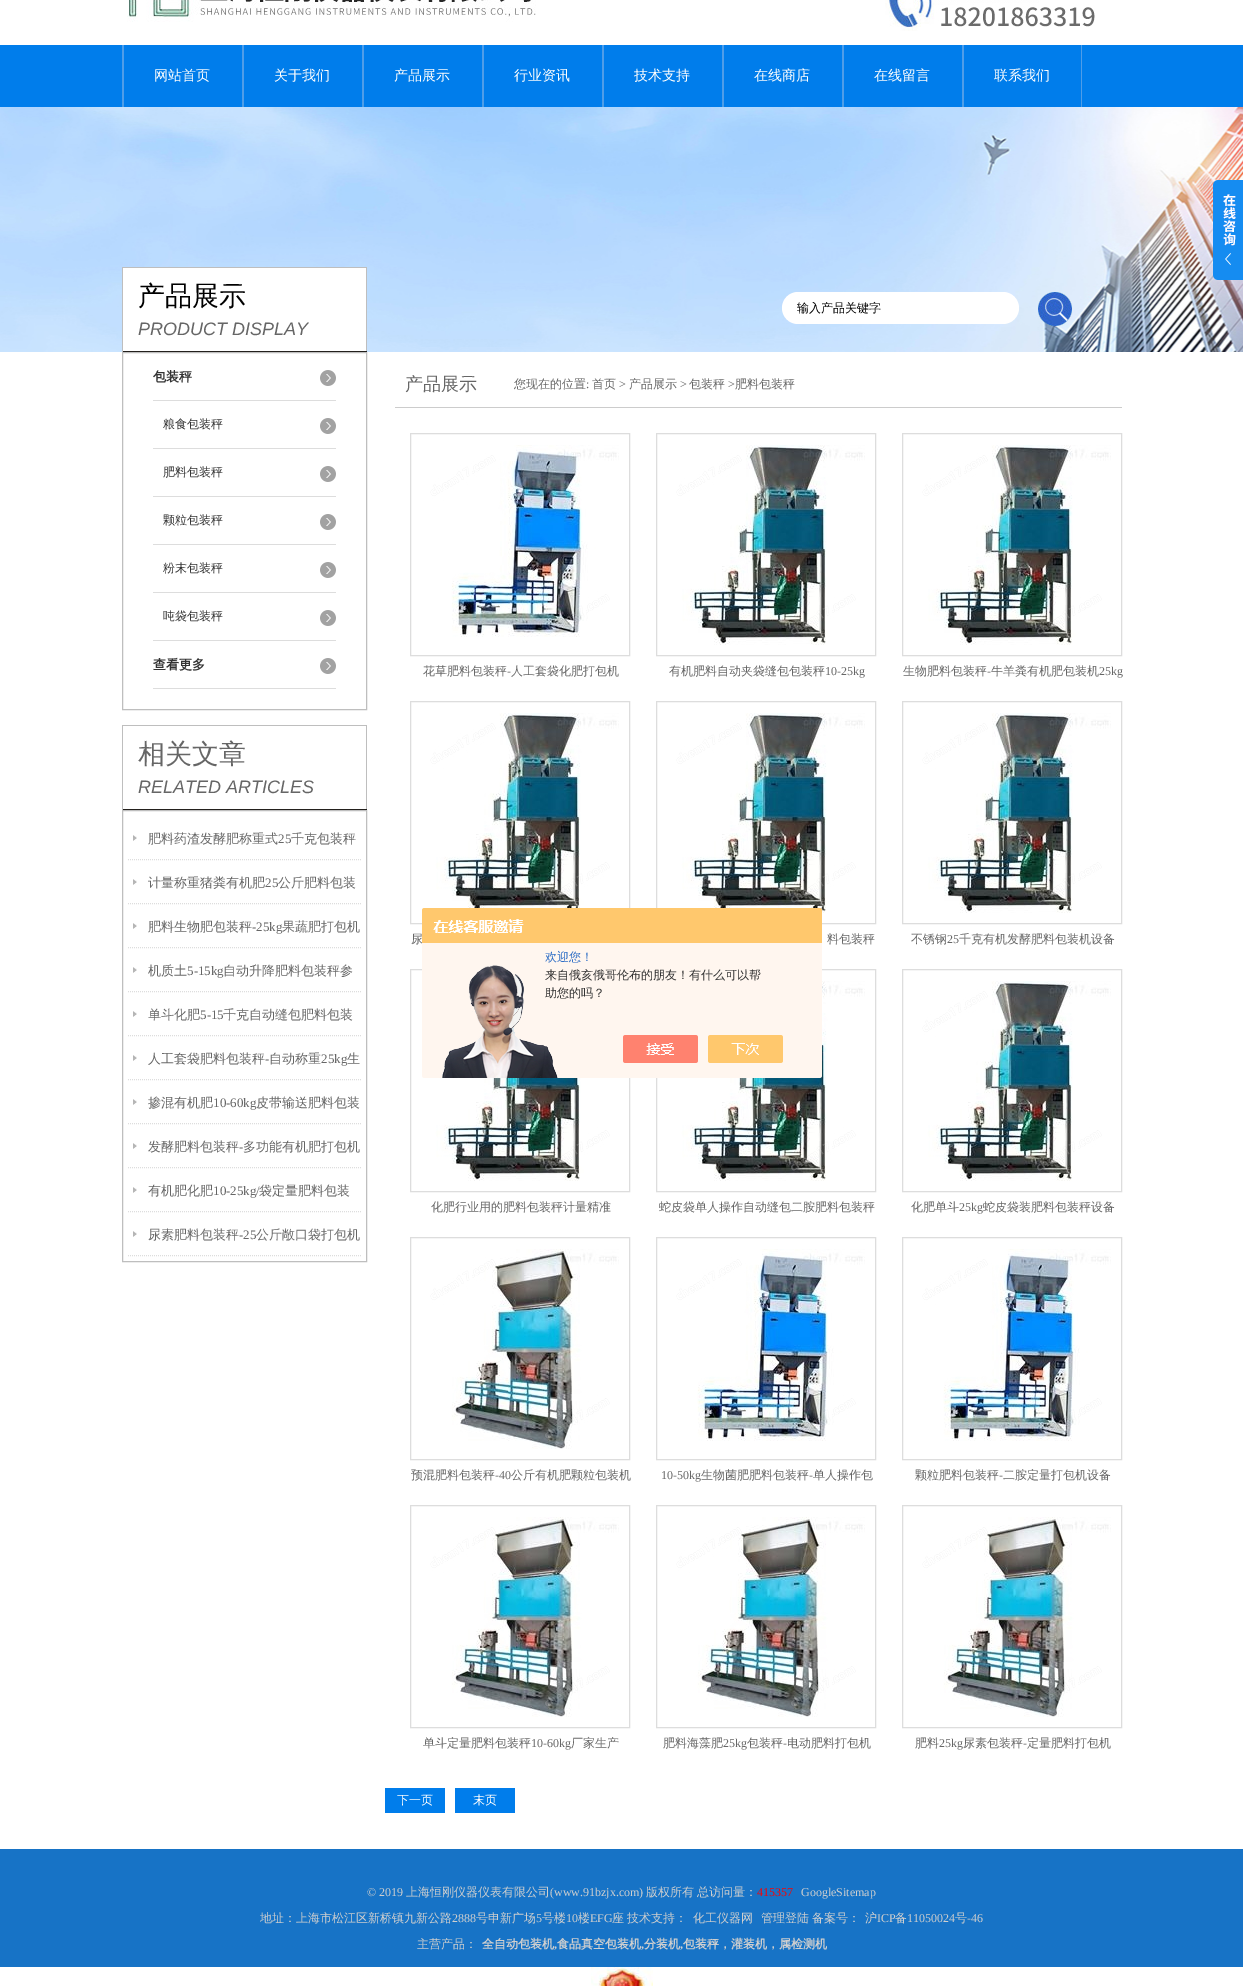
%!PS
<< /PageSize [1243 1986] >> setpagedevice
/mt/moveto load def
/li/lineto load def
/fl/fill load def
/st/stroke load def
/co { dup -16 bitshift 255 div exch dup -8 bitshift 255 and 255 div exch 255 and 255 div setrgbcolor } def
/fn { [ exch dup neg 0 0 3 -1 roll 0 0 ] selectfont } def
/tx { co fn moveto show } def
/bx { co rectfill } def
/rr { 5 dict begin { /r /h /w /y /x } { exch def } forall
  x r add y moveto x w add y 2 copy h add r arct x w add y h add x 1 index r arct
  x y h add x y r arct x y 2 copy exch w add exch r arct closepath end } def
/im { 5 dict begin { /h /w /y /x /name } { exch def } forall
  gsave x y translate w h scale
  w h 8 [w 0 0 h 0 0] name (r) file false 3 colorimage grestore end } def
0 1986 translate 1 -1 scale
4 setmiterlimit
0 0 1243 1986 16#FFFFFF bx
(media/1.raw) 127 0 409 22 im
(media/2.raw) 885 0 210 31 im
0 45 1243 62 16#007DEB bx
(media/3.raw) 122 45 2 62 im
(media/3.raw) 242 45 2 62 im
(media/3.raw) 362 45 2 62 im
(media/3.raw) 482 45 2 62 im
(media/3.raw) 602 45 2 62 im
(media/3.raw) 722 45 2 62 im
(media/3.raw) 842 45 2 62 im
(media/3.raw) 962 45 2 62 im
(media/4.raw) 1081 45 1 62 im
(media/5.raw) 0 107 1243 245 im
(media/6.raw) 1213 180 30 100 im
123 268 243 83 16#FFFFFF bx
122 267 245 1 16#BEBEBE bx
366 267 1 85 16#BEBEBE bx
122 351 245 1 16#23201D bx
122 267 1 85 16#BEBEBE bx
16#FFFFFF co
782 292 237 32 16 rr fl
(media/7.raw) 1038 292 34 34 im
16#BEBEBE co
122.5 352.5 244 357 rectstroke
(media/8.raw) 320 370 16 16 im
153 400 183 1 16#DDDDDD bx
(media/8.raw) 320 418 16 16 im
153 448 183 1 16#DDDDDD bx
(media/8.raw) 320 466 16 16 im
153 496 183 1 16#DDDDDD bx
(media/8.raw) 320 514 16 16 im
153 544 183 1 16#DDDDDD bx
(media/8.raw) 320 562 16 16 im
153 592 183 1 16#DDDDDD bx
(media/8.raw) 320 610 16 16 im
153 640 183 1 16#DDDDDD bx
(media/8.raw) 320 658 16 16 im
153 688 183 1 16#DDDDDD bx
122 725 245 1 16#BEBEBE bx
366 725 1 85 16#BEBEBE bx
122 809 245 1 16#23201D bx
122 725 1 85 16#BEBEBE bx
122.5 810.5 244 451 rectstroke
(media/9.raw) 133 835 4 6 im
16#DDDDDD co
[1 1] 0 setdash
128 859.5 mt 361 859.5 li st
(media/9.raw) 133 879 4 6 im
128 903.5 mt 361 903.5 li st
(media/9.raw) 133 923 4 6 im
128 947.5 mt 361 947.5 li st
(media/9.raw) 133 967 4 6 im
128 991.5 mt 361 991.5 li st
(media/9.raw) 133 1011 4 6 im
128 1035.5 mt 361 1035.5 li st
(media/9.raw) 133 1055 4 6 im
128 1079.5 mt 361 1079.5 li st
(media/9.raw) 133 1099 4 6 im
128 1123.5 mt 361 1123.5 li st
(media/9.raw) 133 1143 4 6 im
128 1167.5 mt 361 1167.5 li st
(media/9.raw) 133 1187 4 6 im
128 1211.5 mt 361 1211.5 li st
(media/9.raw) 133 1231 4 6 im
128 1255.5 mt 361 1255.5 li st
395 407 727 1 16#CCCCCC bx
16#DDDDDD co
[] 0 setdash
410.5 433.5 219 222 rectstroke
(media/10.raw) 430 445 189 192 im
656.5 433.5 219 222 rectstroke
(media/11.raw) 676 445 189 200 im
902.5 433.5 219 222 rectstroke
(media/11.raw) 922 445 189 200 im
410.5 701.5 219 222 rectstroke
(media/12.raw) 430 713 189 195 im
656.5 701.5 219 222 rectstroke
(media/11.raw) 676 713 189 200 im
902.5 701.5 219 222 rectstroke
(media/11.raw) 922 713 189 200 im
410.5 969.5 219 222 rectstroke
(media/13.raw) 430 1078 189 103 im
656.5 969.5 219 222 rectstroke
(media/11.raw) 676 981 189 200 im
902.5 969.5 219 222 rectstroke
(media/11.raw) 922 981 189 200 im
410.5 1237.5 219 222 rectstroke
(media/14.raw) 430 1249 189 200 im
656.5 1237.5 219 222 rectstroke
(media/10.raw) 676 1249 189 192 im
902.5 1237.5 219 222 rectstroke
(media/10.raw) 922 1249 189 192 im
410.5 1505.5 219 222 rectstroke
(media/14.raw) 430 1517 189 200 im
656.5 1505.5 219 222 rectstroke
(media/14.raw) 676 1517 189 200 im
902.5 1505.5 219 222 rectstroke
(media/14.raw) 922 1517 189 200 im
385 1788 60 25 16#007DEB bx
455 1788 60 25 16#007DEB bx
0 1849 1243 118 16#1773C6 bx
(media/16.raw) 591 1967 62 19 im
(网站首页) 154 80 /WenQuanYiZenHei-Medium 14 16#FFFFFF tx
(关于我们) 274 80 /WenQuanYiZenHei-Medium 14 16#FFFFFF tx
(产品展示) 394 80 /WenQuanYiZenHei-Medium 14 16#FFFFFF tx
(行业资讯) 514 80 /WenQuanYiZenHei-Medium 14 16#FFFFFF tx
(技术支持) 634 80 /WenQuanYiZenHei-Medium 14 16#FFFFFF tx
(在线商店) 754 80 /WenQuanYiZenHei-Medium 14 16#FFFFFF tx
(在线留言) 874 80 /WenQuanYiZenHei-Medium 14 16#FFFFFF tx
(联系我们) 994 80 /WenQuanYiZenHei-Medium 14 16#FFFFFF tx
(产品展示) 138 305 /WenQuanYiZenHei-Medium 27 16#000000 tx
(PRODUCT DISPLAY) 138 335 /LiberationSans-Italic 18 16#666666 tx
(输入产品关键字) 797 312 /WenQuanYiZenHei-Medium 12 16#000000 tx
(包装秤) 153 381 /WenQuanYiZenHei-Bold 13 16#333333 tx
(粮食包装秤) 163 428 /WenQuanYiZenHei-Medium 12 16#333333 tx
(肥料包装秤) 163 476 /WenQuanYiZenHei-Medium 12 16#333333 tx
(颗粒包装秤) 163 524 /WenQuanYiZenHei-Medium 12 16#333333 tx
(粉末包装秤) 163 572 /WenQuanYiZenHei-Medium 12 16#333333 tx
(吨袋包装秤) 163 620 /WenQuanYiZenHei-Medium 12 16#333333 tx
(查看更多) 153 669 /WenQuanYiZenHei-Bold 13 16#333333 tx
(相关文章) 138 763 /WenQuanYiZenHei-Medium 27 16#666666 tx
(RELATED ARTICLES) 138 793 /LiberationSans-Italic 18 16#666666 tx
(肥料药渣发酵肥称重式) 148 843 /WenQuanYiZenHei-Medium 13 16#666666 tx
(25) 278 843 /LiberationSerif-Regular 13 16#666666 tx
(千克包装秤) 291 843 /WenQuanYiZenHei-Medium 13 16#666666 tx
(计量称重猪粪有机肥) 148 887 /WenQuanYiZenHei-Medium 13 16#666666 tx
(25) 265 887 /LiberationSerif-Regular 13 16#666666 tx
(公斤肥料包装) 278 887 /WenQuanYiZenHei-Medium 13 16#666666 tx
(肥料生物肥包装秤) 148 931 /WenQuanYiZenHei-Medium 13 16#666666 tx
(-25kg) 252 931 /LiberationSerif-Regular 13 16#666666 tx
(果蔬肥打包机) 282 931 /WenQuanYiZenHei-Medium 13 16#666666 tx
(机质土) 148 975 /WenQuanYiZenHei-Medium 13 16#666666 tx
(5-15kg) 187 975 /LiberationSerif-Regular 13 16#666666 tx
(自动升降肥料包装秤参) 223 975 /WenQuanYiZenHei-Medium 13 16#666666 tx
(单斗化肥) 148 1019 /WenQuanYiZenHei-Medium 13 16#666666 tx
(5-15) 200 1019 /LiberationSerif-Regular 13 16#666666 tx
(千克自动缝包肥料包装) 223 1019 /WenQuanYiZenHei-Medium 13 16#666666 tx
(人工套袋肥料包装秤) 148 1063 /WenQuanYiZenHei-Medium 13 16#666666 tx
(-) 265 1063 /LiberationSerif-Regular 13 16#666666 tx
(自动称重) 269 1063 /WenQuanYiZenHei-Medium 13 16#666666 tx
(25kg) 321 1063 /LiberationSerif-Regular 13 16#666666 tx
(生) 347 1063 /WenQuanYiZenHei-Medium 13 16#666666 tx
(掺混有机肥) 148 1107 /WenQuanYiZenHei-Medium 13 16#666666 tx
(10-60kg) 213 1107 /LiberationSerif-Regular 13 16#666666 tx
(皮带输送肥料包装) 256 1107 /WenQuanYiZenHei-Medium 13 16#666666 tx
(发酵肥料包装秤) 148 1151 /WenQuanYiZenHei-Medium 13 16#666666 tx
(-) 239 1151 /LiberationSerif-Regular 13 16#666666 tx
(多功能有机肥打包机) 243 1151 /WenQuanYiZenHei-Medium 13 16#666666 tx
(有机肥化肥) 148 1195 /WenQuanYiZenHei-Medium 13 16#666666 tx
(10-25kg/) 213 1195 /LiberationSerif-Regular 13 16#666666 tx
(袋定量肥料包装) 259 1195 /WenQuanYiZenHei-Medium 13 16#666666 tx
(尿素肥料包装秤) 148 1239 /WenQuanYiZenHei-Medium 13 16#666666 tx
(-25) 239 1239 /LiberationSerif-Regular 13 16#666666 tx
(公斤敞口袋打包机) 256 1239 /WenQuanYiZenHei-Medium 13 16#666666 tx
(产品展示) 405 390 /WenQuanYiZenHei-Medium 18 16#666666 tx
(您现在的位置) 514 388 /WenQuanYiZenHei-Medium 12 16#666666 tx
(:) 586 388 /LiberationSerif-Regular 12 16#666666 tx
(首页) 592 388 /WenQuanYiZenHei-Medium 12 16#666666 tx
(>) 619 388 /LiberationSerif-Regular 12 16#666666 tx
(产品展示) 629 388 /WenQuanYiZenHei-Medium 12 16#666666 tx
(>) 680 388 /LiberationSerif-Regular 12 16#666666 tx
(包装秤) 689 388 /WenQuanYiZenHei-Medium 12 16#666666 tx
(>) 728 388 /LiberationSerif-Regular 12 16#666666 tx
(肥料包装秤) 735 388 /WenQuanYiZenHei-Medium 12 16#666666 tx
(花草肥料包装秤) 423 675 /WenQuanYiZenHei-Medium 12 16#666666 tx
(-) 507 675 /LiberationSerif-Regular 12 16#666666 tx
(人工套袋化肥打包机) 511 675 /WenQuanYiZenHei-Medium 12 16#666666 tx
(有机肥料自动夹袋缝包包装秤) 669 675 /WenQuanYiZenHei-Medium 12 16#666666 tx
(10-25kg) 825 675 /LiberationSerif-Regular 12 16#666666 tx
(生物肥料包装秤) 903 675 /WenQuanYiZenHei-Medium 12 16#666666 tx
(-) 987 675 /LiberationSerif-Regular 12 16#666666 tx
(牛羊粪有机肥包装机) 991 675 /WenQuanYiZenHei-Medium 12 16#666666 tx
(25kg) 1099 675 /LiberationSerif-Regular 12 16#666666 tx
(尿) 411 943 /WenQuanYiZenHei-Medium 12 16#666666 tx
(料包装秤) 827 943 /WenQuanYiZenHei-Medium 12 16#666666 tx
(不锈钢) 911 943 /WenQuanYiZenHei-Medium 12 16#666666 tx
(25) 947 943 /LiberationSerif-Regular 12 16#666666 tx
(千克有机发酵肥料包装机设备) 959 943 /WenQuanYiZenHei-Medium 12 16#666666 tx
(化肥行业用的肥料包装秤计量精准) 431 1211 /WenQuanYiZenHei-Medium 12 16#666666 tx
(蛇皮袋单人操作自动缝包二胺肥料包装秤) 659 1211 /WenQuanYiZenHei-Medium 12 16#666666 tx
(化肥单斗) 911 1211 /WenQuanYiZenHei-Medium 12 16#666666 tx
(25kg) 959 1211 /LiberationSerif-Regular 12 16#666666 tx
(蛇皮袋装肥料包装秤设备) 983 1211 /WenQuanYiZenHei-Medium 12 16#666666 tx
(预混肥料包装秤) 411 1479 /WenQuanYiZenHei-Medium 12 16#666666 tx
(-40) 495 1479 /LiberationSerif-Regular 12 16#666666 tx
(公斤有机肥颗粒包装机) 511 1479 /WenQuanYiZenHei-Medium 12 16#666666 tx
(10-50kg) 661 1479 /LiberationSerif-Regular 12 16#666666 tx
(生物菌肥肥料包装秤) 701 1479 /WenQuanYiZenHei-Medium 12 16#666666 tx
(-) 809 1479 /LiberationSerif-Regular 12 16#666666 tx
(单人操作包) 813 1479 /WenQuanYiZenHei-Medium 12 16#666666 tx
(颗粒肥料包装秤) 915 1479 /WenQuanYiZenHei-Medium 12 16#666666 tx
(-) 999 1479 /LiberationSerif-Regular 12 16#666666 tx
(二胺定量打包机设备) 1003 1479 /WenQuanYiZenHei-Medium 12 16#666666 tx
(单斗定量肥料包装秤) 423 1747 /WenQuanYiZenHei-Medium 12 16#666666 tx
(10-60kg) 531 1747 /LiberationSerif-Regular 12 16#666666 tx
(厂家生产) 571 1747 /WenQuanYiZenHei-Medium 12 16#666666 tx
(肥料海藻肥) 663 1747 /WenQuanYiZenHei-Medium 12 16#666666 tx
(25kg) 723 1747 /LiberationSerif-Regular 12 16#666666 tx
(包装秤) 747 1747 /WenQuanYiZenHei-Medium 12 16#666666 tx
(-) 783 1747 /LiberationSerif-Regular 12 16#666666 tx
(电动肥料打包机) 787 1747 /WenQuanYiZenHei-Medium 12 16#666666 tx
(肥料) 915 1747 /WenQuanYiZenHei-Medium 12 16#666666 tx
(25kg) 939 1747 /LiberationSerif-Regular 12 16#666666 tx
(尿素包装秤) 963 1747 /WenQuanYiZenHei-Medium 12 16#666666 tx
(-) 1023 1747 /LiberationSerif-Regular 12 16#666666 tx
(定量肥料打包机) 1027 1747 /WenQuanYiZenHei-Medium 12 16#666666 tx
(下一页) 397 1804 /WenQuanYiZenHei-Medium 12 16#FFFFFF tx
(末页) 473 1804 /WenQuanYiZenHei-Medium 12 16#FFFFFF tx
(media/15.raw) 422 908 400 170 im
(欢迎您！) 545 961 /WenQuanYiZenHei-Medium 12 16#2E6EC6 tx
(来自俄亥俄哥伦布的朋友！有什么可以帮) 545 979 /WenQuanYiZenHei-Medium 12 16#333333 tx
(助您的吗？) 545 997 /WenQuanYiZenHei-Medium 12 16#333333 tx
(© 2019) 367 1896 /LiberationSerif-Regular 12 16#CFCFCF tx
(上海恒刚仪器仪表有限公司) 406 1896 /WenQuanYiZenHei-Medium 12 16#CFCFCF tx
(\(www.91bzjx.com\)) 550 1896 /LiberationSerif-Regular 12 16#CFCFCF tx
(版权所有) 646 1896 /WenQuanYiZenHei-Medium 12 16#CFCFCF tx
(总访问量：) 697 1896 /WenQuanYiZenHei-Medium 12 16#CFCFCF tx
(415357) 757 1896 /LiberationSerif-Regular 12 16#FF0000 tx
(GoogleSitemap) 801 1896 /LiberationSerif-Regular 12 16#CFCFCF tx
(地址：上海市松江区新桥镇九新公路) 260 1922 /WenQuanYiZenHei-Medium 12 16#CFCFCF tx
(2888) 452 1922 /LiberationSerif-Regular 12 16#CFCFCF tx
(号申新广场) 476 1922 /WenQuanYiZenHei-Medium 12 16#CFCFCF tx
(5) 536 1922 /LiberationSerif-Regular 12 16#CFCFCF tx
(号楼) 542 1922 /WenQuanYiZenHei-Medium 12 16#CFCFCF tx
(10) 566 1922 /LiberationSerif-Regular 12 16#CFCFCF tx
(楼) 578 1922 /WenQuanYiZenHei-Medium 12 16#CFCFCF tx
(EFG) 590 1922 /LiberationSerif-Regular 12 16#CFCFCF tx
/WenQuanYiZenHei-Medium 12 fn
612 1922 mt -1 0 32 (座 技术支持：) widthshow
(化工仪器网) 693 1922 /WenQuanYiZenHei-Medium 12 16#CFCFCF tx
(管理登陆) 761 1922 /WenQuanYiZenHei-Medium 12 16#CFCFCF tx
(备案号：) 812 1922 /WenQuanYiZenHei-Medium 12 16#CFCFCF tx
(沪) 865 1922 /WenQuanYiZenHei-Medium 12 16#CFCFCF tx
(ICP) 877 1922 /LiberationSerif-Regular 12 16#CFCFCF tx
(备) 895 1922 /WenQuanYiZenHei-Medium 12 16#CFCFCF tx
(11050024) 907 1922 /LiberationSerif-Regular 12 16#CFCFCF tx
(号) 955 1922 /WenQuanYiZenHei-Medium 12 16#CFCFCF tx
(-46) 967 1922 /LiberationSerif-Regular 12 16#CFCFCF tx
(主营产品：) 417 1948 /WenQuanYiZenHei-Medium 12 16#CFCFCF tx
(全自动包装机) 482 1948 /WenQuanYiZenHei-Bold 12 16#CFCFCF tx
(,) 554 1948 /LiberationSerif-Bold 12 16#CFCFCF tx
(食品真空包装机) 557 1948 /WenQuanYiZenHei-Bold 12 16#CFCFCF tx
(,) 641 1948 /LiberationSerif-Bold 12 16#CFCFCF tx
(分装机) 644 1948 /WenQuanYiZenHei-Bold 12 16#CFCFCF tx
(,) 680 1948 /LiberationSerif-Bold 12 16#CFCFCF tx
(包装秤，灌装机，属检测机) 683 1948 /WenQuanYiZenHei-Bold 12 16#CFCFCF tx
showpage
